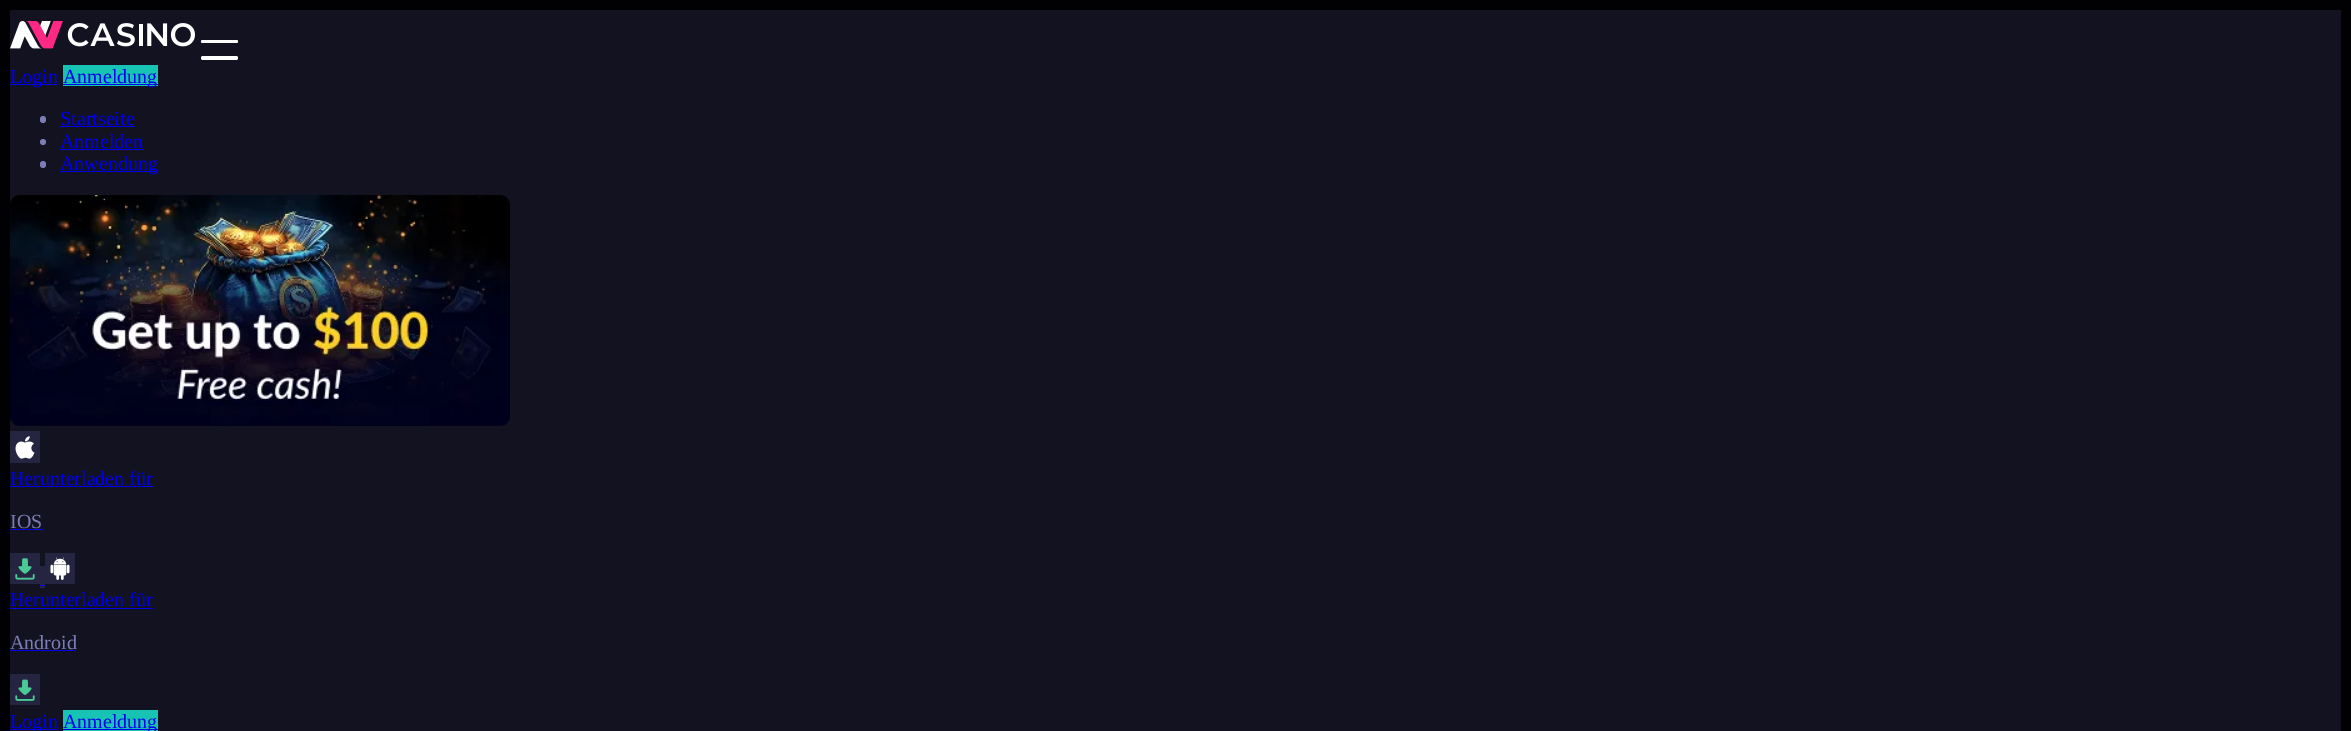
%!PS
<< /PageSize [2351 731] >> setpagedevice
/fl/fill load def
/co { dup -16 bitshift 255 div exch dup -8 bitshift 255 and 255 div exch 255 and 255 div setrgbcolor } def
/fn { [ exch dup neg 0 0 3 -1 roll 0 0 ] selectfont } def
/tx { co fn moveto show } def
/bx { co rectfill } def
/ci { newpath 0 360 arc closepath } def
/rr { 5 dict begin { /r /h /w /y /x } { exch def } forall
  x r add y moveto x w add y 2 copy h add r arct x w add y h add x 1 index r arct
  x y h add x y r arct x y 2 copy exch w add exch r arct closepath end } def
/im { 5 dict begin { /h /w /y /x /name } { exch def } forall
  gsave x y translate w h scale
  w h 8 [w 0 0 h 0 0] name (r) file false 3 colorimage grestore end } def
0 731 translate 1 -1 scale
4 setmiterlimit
0 0 2351 731 16#010103 bx
10 10 2331 721 16#121221 bx
(media/1.raw) 10 21 185 28 im
16#FFFFFF co
201 40 37 3 1.5 rr fl
201 56 37 4 2 rr fl
10 84 48 1 16#0000EE bx
63 65 95 21 16#17C3B2 bx
63 84 95 1 16#0000EE bx
16#7C7CB6 co
40 116 6 7 3 rr fl
60 126 75 1 16#0000EE bx
16#7C7CB6 co
43 142 3 ci fl
60 149 84 1 16#0000EE bx
16#7C7CB6 co
40 161 6 7 3 rr fl
60 171 98 1 16#0000EE bx
(media/2.raw) 10 195 500 231 im
10 431 30 32 16#252541 bx
10 553 30 31 16#252541 bx
40 566 5 22 16#252541 bx
(media/3.raw) 15 436 20 23 im
10 486 143 1 16#0000EE bx
10 529 33 1 16#0000EE bx
(media/4.raw) 15 558 20 22 im
40 585 5 1 16#0000EE bx
45 553 30 31 16#252541 bx
10 674 30 31 16#252541 bx
(media/5.raw) 50 557 20 23 im
10 608 143 1 16#0000EE bx
10 650 66 1 16#0000EE bx
(media/6.raw) 15 679 20 22 im
10 729 48 1 16#0000EE bx
63 710 95 21 16#17C3B2 bx
63 729 95 1 16#0000EE bx
(Login) 10 83 /LiberationSerif-Regular 20 16#0000EE tx
(Anmeldung) 63 83 /LiberationSerif-Regular 20 16#0000EE tx
(Startseite) 60 125 /LiberationSerif-Regular 20 16#0000EE tx
(Anmelden) 60 148 /LiberationSerif-Regular 20 16#0000EE tx
(Anwendung) 60 170 /LiberationSerif-Regular 20 16#0000EE tx
(Herunterladen für) 10 485 /LiberationSerif-Regular 20 16#0000EE tx
(IOS) 10 528 /LiberationSerif-Regular 20 16#7C7CB6 tx
(Herunterladen für) 10 606 /LiberationSerif-Regular 20 16#0000EE tx
(Android) 10 649 /LiberationSerif-Regular 20 16#7C7CB6 tx
(Login) 10 728 /LiberationSerif-Regular 20 16#0000EE tx
(Anmeldung) 63 728 /LiberationSerif-Regular 20 16#0000EE tx
showpage
